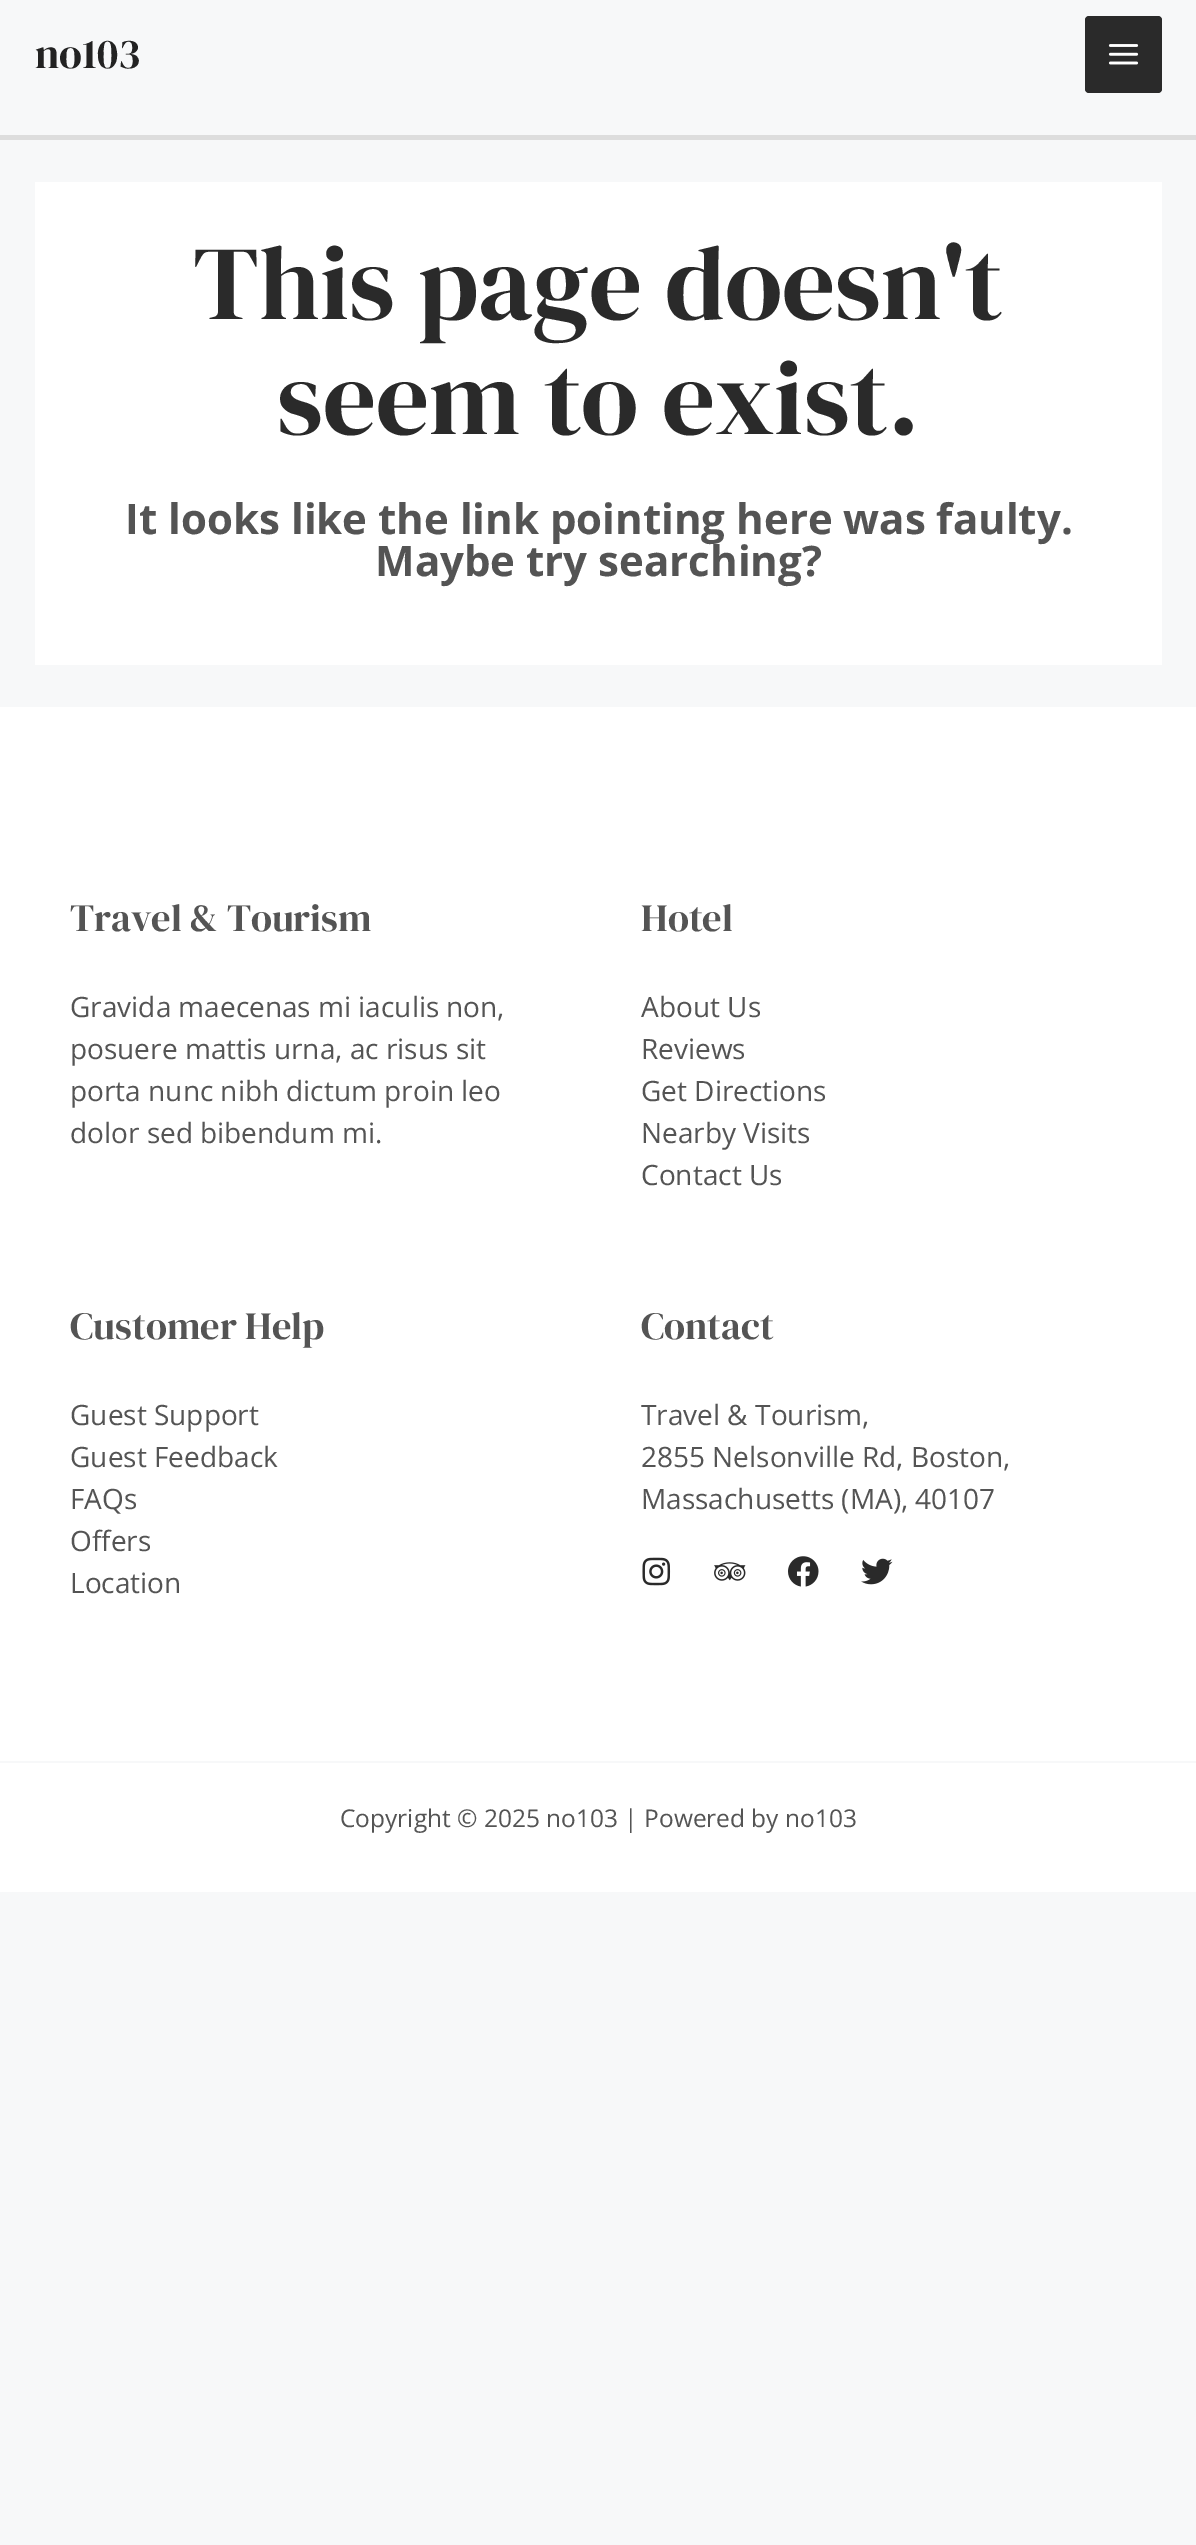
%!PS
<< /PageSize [1196 2545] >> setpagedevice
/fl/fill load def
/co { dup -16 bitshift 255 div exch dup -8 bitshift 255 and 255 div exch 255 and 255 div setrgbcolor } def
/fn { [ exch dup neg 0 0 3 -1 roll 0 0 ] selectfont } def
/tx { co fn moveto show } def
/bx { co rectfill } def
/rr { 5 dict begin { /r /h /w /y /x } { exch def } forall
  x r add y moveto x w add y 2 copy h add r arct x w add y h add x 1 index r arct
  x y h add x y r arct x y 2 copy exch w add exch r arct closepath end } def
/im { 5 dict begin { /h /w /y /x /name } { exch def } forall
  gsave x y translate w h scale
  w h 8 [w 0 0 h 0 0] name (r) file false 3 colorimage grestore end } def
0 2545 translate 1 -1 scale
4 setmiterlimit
0 0 1196 2545 16#F7F8F9 bx
0 135 1196 5 16#DDDDDD bx
16#2A2A2A co
1085 16 77 77 4 rr fl
(media/1.raw) 1108 44 31 21 im
35 182 1127 483 16#FFFFFF bx
0 707 1196 1185 16#FFFFFF bx
(media/2.raw) 642 1557 29 29 im
(media/3.raw) 714 1562 32 19 im
(media/4.raw) 788 1556 31 31 im
(media/5.raw) 861 1558 32 27 im
0 1761 1196 2 16#F7F8F9 bx
(no103) 35 68 /DMSerifDisplay-Regular 42 16#222222 tx
(This page doesn't) 193 319 /DMSerifDisplay-Regular 105 16#2A2A2A tx
(seem to exist.) 277 434 /DMSerifDisplay-Regular 105 16#2A2A2A tx
(It looks like the link pointing here was faulty.) 125 534 /OpenSans-Bold 42 16#545454 tx
(Maybe try searching?) 375 576 /OpenSans-Bold 42 16#545454 tx
(Travel & Tourism) 70 931 /DMSerifDisplay-Regular 38.5 16#545454 tx
(Gravida maecenas mi iaculis non,) 70 1017 /OpenSans-Regular 28 16#545454 tx
(posuere mattis urna, ac risus sit) 70 1059 /OpenSans-Regular 28 16#545454 tx
(porta nunc nibh dictum proin leo) 70 1101 /OpenSans-Regular 28 16#545454 tx
(dolor sed bibendum mi.) 70 1143 /OpenSans-Regular 28 16#545454 tx
(Hotel) 641 931 /DMSerifDisplay-Regular 38.5 16#545454 tx
(About Us) 641 1017 /OpenSans-Regular 28 16#545454 tx
(Reviews) 641 1059 /OpenSans-Regular 28 16#545454 tx
(Get Directions) 641 1101 /OpenSans-Regular 28 16#545454 tx
(Nearby Visits) 641 1143 /OpenSans-Regular 28 16#545454 tx
(Contact Us) 641 1185 /OpenSans-Regular 28 16#545454 tx
(Customer Help) 70 1339 /DMSerifDisplay-Regular 38.5 16#545454 tx
(Guest Support) 70 1425 /OpenSans-Regular 28 16#545454 tx
(Guest Feedback) 70 1467 /OpenSans-Regular 28 16#545454 tx
(FAQs) 70 1509 /OpenSans-Regular 28 16#545454 tx
(Offers) 70 1551 /OpenSans-Regular 28 16#545454 tx
(Location) 70 1593 /OpenSans-Regular 28 16#545454 tx
(Contact) 641 1339 /DMSerifDisplay-Regular 38.5 16#545454 tx
(Travel & Tourism,) 641 1425 /OpenSans-Regular 28 16#545454 tx
(2855 Nelsonville Rd, Boston,) 641 1467 /OpenSans-Regular 28 16#545454 tx
(Massachusetts \(MA\), 40107) 641 1509 /OpenSans-Regular 28 16#545454 tx
(Copyright © 2025 no103 | Powered by no103) 340 1827 /OpenSans-Regular 24.5 16#545454 tx
showpage
